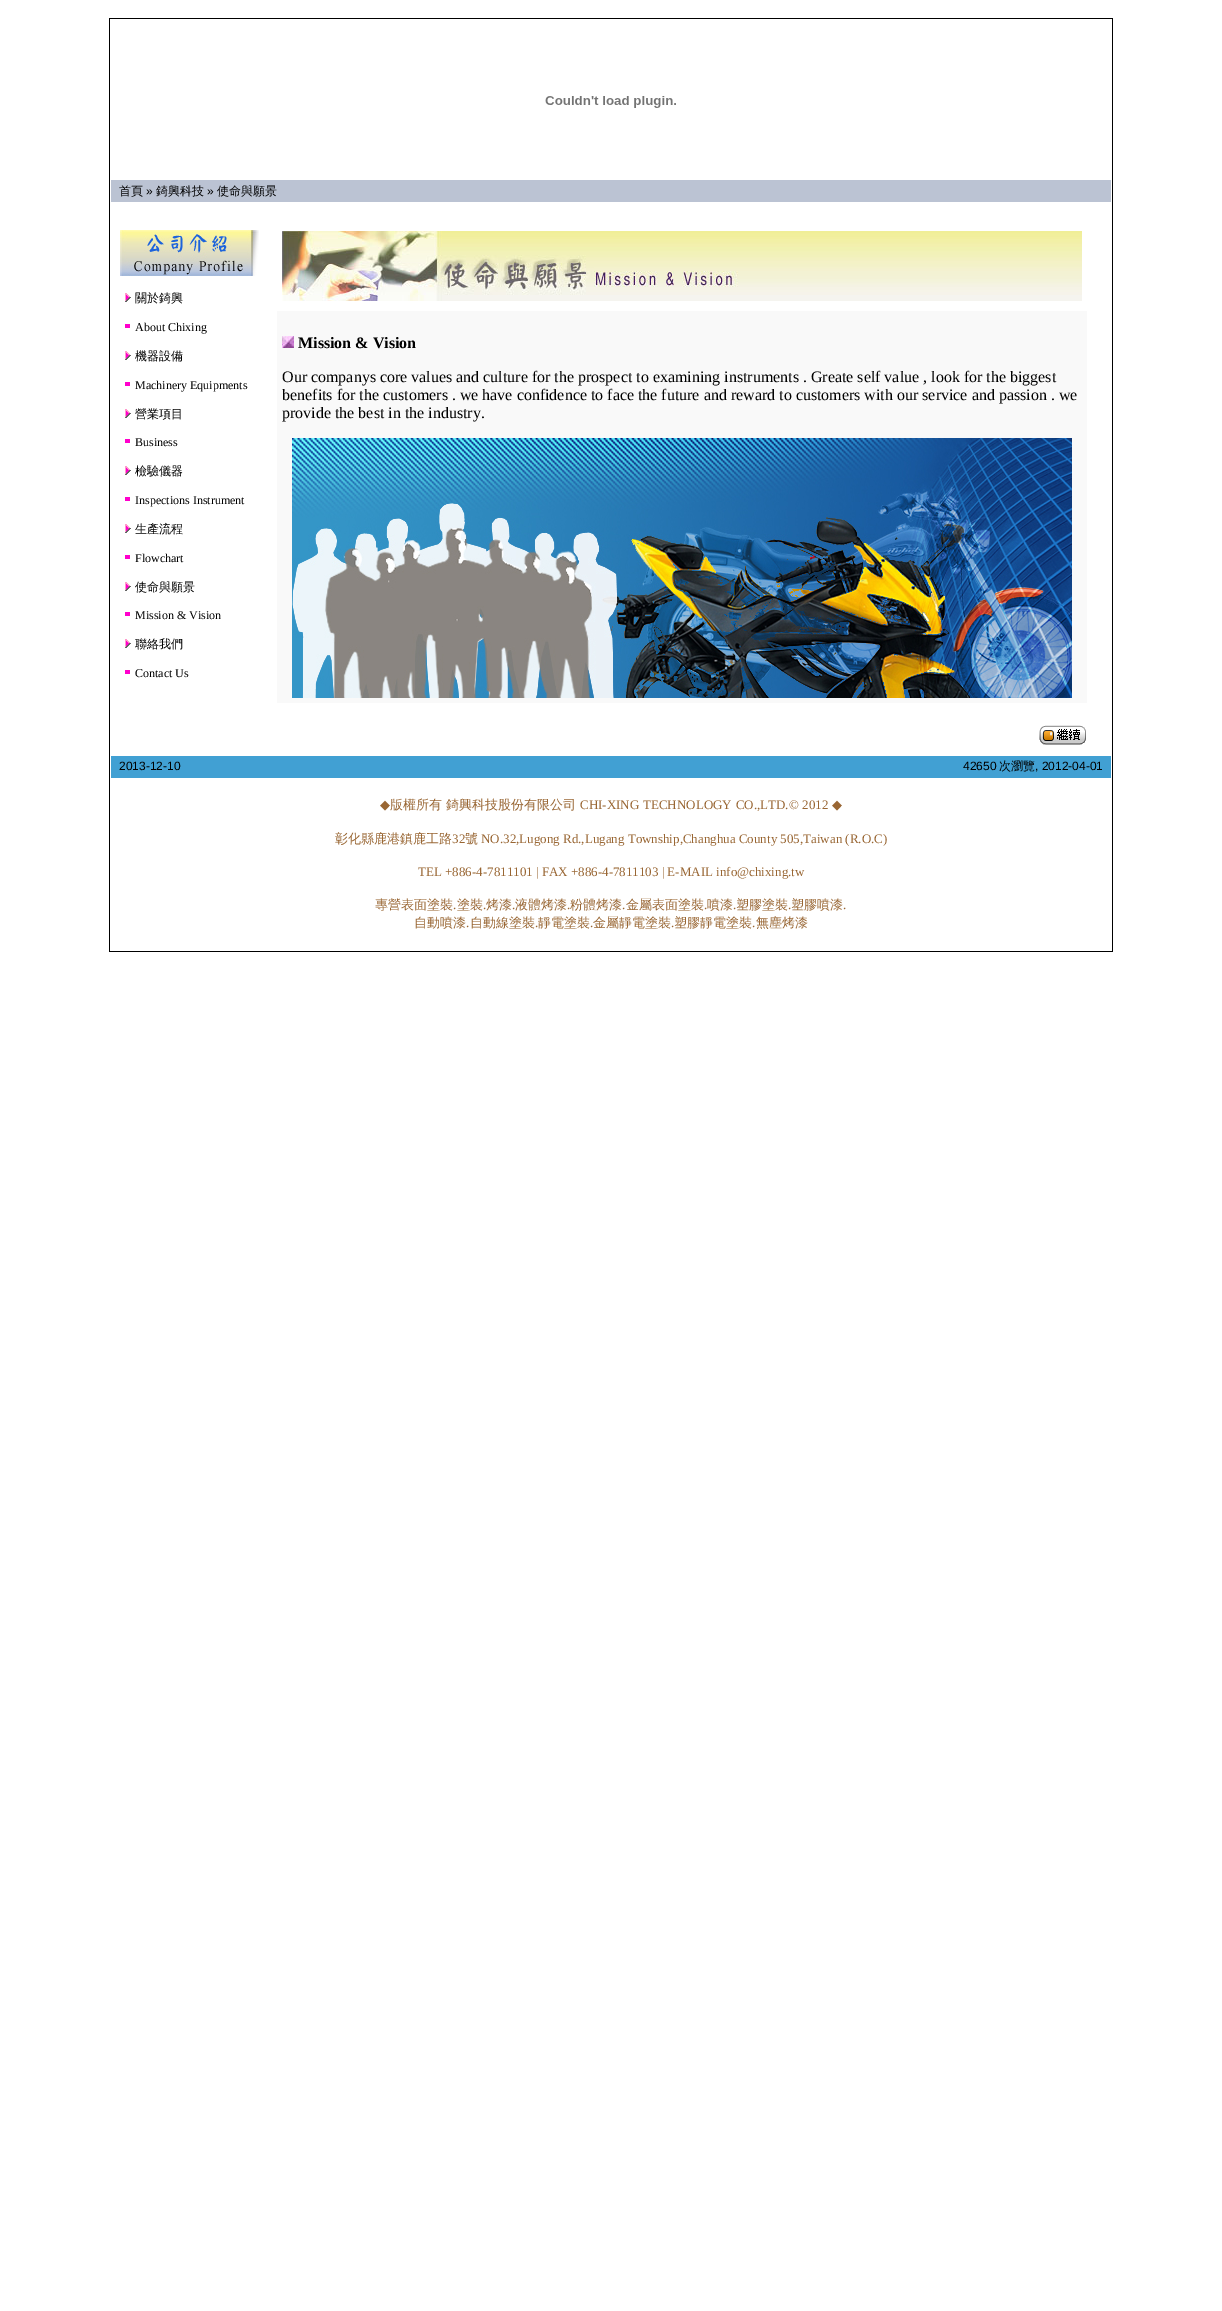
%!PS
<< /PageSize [1222 2311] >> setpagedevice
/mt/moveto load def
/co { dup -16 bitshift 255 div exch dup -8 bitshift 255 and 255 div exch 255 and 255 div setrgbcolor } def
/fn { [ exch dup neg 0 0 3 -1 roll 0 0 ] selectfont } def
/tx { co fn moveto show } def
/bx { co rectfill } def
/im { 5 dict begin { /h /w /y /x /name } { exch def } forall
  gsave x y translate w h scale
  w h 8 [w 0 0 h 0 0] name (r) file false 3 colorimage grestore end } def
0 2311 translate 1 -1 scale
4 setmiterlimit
0 0 1222 2311 16#FFFFFF bx
109 18 1004 934 16#000000 bx
110 19 1002 932 16#FFFFFF bx
(media/1.raw) 545 96 131 12 im
111 180 1000 22 16#BBC3D3 bx
(media/2.raw) 120 230 139 46 im
(media/3.raw) 125 293 6 9 im
125 324 5 4 16#FF00CC bx
(media/3.raw) 125 351 6 9 im
125 382 5 4 16#FF00CC bx
(media/3.raw) 125 409 6 9 im
125 439 5 4 16#FF00CC bx
(media/3.raw) 125 466 6 9 im
125 497 5 4 16#FF00CC bx
(media/3.raw) 125 524 6 9 im
125 555 5 4 16#FF00CC bx
(media/3.raw) 125 582 6 9 im
125 612 5 4 16#FF00CC bx
(media/3.raw) 125 639 6 9 im
125 670 5 4 16#FF00CC bx
(media/4.raw) 282 231 800 70 im
277 311 810 392 16#F9F9F9 bx
(media/5.raw) 282 336 12 12 im
(media/6.raw) 292 438 780 260 im
(media/7.raw) 1039 725 47 20 im
111 756 1000 22 16#41A0D3 bx
(首頁) 119 195 /WenQuanYiZenHei-Medium 12 16#000000 tx
(») 146 195 /LiberationSans-Regular 12 16#000000 tx
(錡興科技) 156 195 /WenQuanYiZenHei-Medium 12 16#000000 tx
(») 207 195 /LiberationSans-Regular 12 16#000000 tx
(使命與願景) 217 195 /WenQuanYiZenHei-Medium 12 16#000000 tx
(關於錡興) 135 302 /WenQuanYiZenHei-Medium 12 16#000000 tx
(About Chixing) 135 331 /LiberationSerif-Regular 12 16#000000 tx
(機器設備) 135 360 /WenQuanYiZenHei-Medium 12 16#000000 tx
(Machinery Equipments) 135 389 /LiberationSerif-Regular 12 16#000000 tx
(營業項目) 135 418 /WenQuanYiZenHei-Medium 12 16#000000 tx
(Business) 135 446 /LiberationSerif-Regular 12 16#000000 tx
(檢驗儀器) 135 475 /WenQuanYiZenHei-Medium 12 16#000000 tx
(Inspections Instrument) 135 504 /LiberationSerif-Regular 12 16#000000 tx
(生產流程) 135 533 /WenQuanYiZenHei-Medium 12 16#000000 tx
(Flowchart) 135 562 /LiberationSerif-Regular 12 16#000000 tx
(使命與願景) 135 591 /WenQuanYiZenHei-Medium 12 16#000000 tx
(Mission & Vision) 135 619 /LiberationSerif-Regular 12 16#000000 tx
(聯絡我們) 135 648 /WenQuanYiZenHei-Medium 12 16#000000 tx
(Contact Us) 135 677 /LiberationSerif-Regular 12 16#000000 tx
(Mission & Vision) 298 348 /LiberationSerif-Bold 16 16#000000 tx
(Our companys core values and culture for the prospect to examining instruments . Greate self value , look for the biggest) 282 382 /LiberationSerif-Regular 16 16#000000 tx
(benefits for the customers . we have confidence to face the future and reward to customers with our service and passion . we) 282 400 /LiberationSerif-Regular 16 16#000000 tx
(provide the best in the industry.) 282 418 /LiberationSerif-Regular 16 16#000000 tx
(2013-12-10) 119 770 /LiberationSans-Regular 12 16#000000 tx
(42650) 963 770 /LiberationSans-Regular 12 16#000000 tx
(次瀏覽) 999 770 /WenQuanYiZenHei-Medium 12 16#000000 tx
(, 2012-04-01) 1035 770 /LiberationSans-Regular 12 16#000000 tx
(◆) 380 809 /DejaVuSans-Regular 13 16#996633 tx
(版權所有 錡興科技股份有限公司) 390 809 /WenQuanYiZenHei-Medium 13 16#996633 tx
/LiberationSerif-Regular 13 fn
580 809 mt .5 0 32 (CHI-XING TECHNOLOGY CO.,LTD.© 2012) widthshow
(◆) 832 809 /DejaVuSans-Regular 13 16#996633 tx
(彰化縣鹿港鎮鹿工路) 335 843 /WenQuanYiZenHei-Medium 13 16#996633 tx
(32) 452 843 /LiberationSerif-Regular 13 16#996633 tx
(號) 465 843 /WenQuanYiZenHei-Medium 13 16#996633 tx
(NO.32,Lugong Rd.,Lugang Township,Changhua County 505,Taiwan \(R.O.C\)) 481 843 /LiberationSerif-Regular 13 16#996633 tx
(TEL +886-4-7811101 | FAX +886-4-7811103 | E-MAIL info@chixing.tw) 418 876 /LiberationSerif-Regular 13 16#996633 tx
(專營表面塗裝) 375 909 /WenQuanYiZenHei-Medium 13 16#996633 tx
(.) 453 909 /LiberationSerif-Regular 13 16#996633 tx
(塗裝) 457 909 /WenQuanYiZenHei-Medium 13 16#996633 tx
(.) 483 909 /LiberationSerif-Regular 13 16#996633 tx
(烤漆) 486 909 /WenQuanYiZenHei-Medium 13 16#996633 tx
(.) 512 909 /LiberationSerif-Regular 13 16#996633 tx
(液體烤漆) 515 909 /WenQuanYiZenHei-Medium 13 16#996633 tx
(.) 567 909 /LiberationSerif-Regular 13 16#996633 tx
(粉體烤漆) 570 909 /WenQuanYiZenHei-Medium 13 16#996633 tx
(.) 622 909 /LiberationSerif-Regular 13 16#996633 tx
(金屬表面塗裝) 626 909 /WenQuanYiZenHei-Medium 13 16#996633 tx
(.) 704 909 /LiberationSerif-Regular 13 16#996633 tx
(噴漆) 707 909 /WenQuanYiZenHei-Medium 13 16#996633 tx
(.) 733 909 /LiberationSerif-Regular 13 16#996633 tx
(塑膠塗裝) 736 909 /WenQuanYiZenHei-Medium 13 16#996633 tx
(.) 788 909 /LiberationSerif-Regular 13 16#996633 tx
(塑膠噴漆) 791 909 /WenQuanYiZenHei-Medium 13 16#996633 tx
(.) 843 909 /LiberationSerif-Regular 13 16#996633 tx
(自動噴漆) 414 927 /WenQuanYiZenHei-Medium 13 16#996633 tx
(.) 466 927 /LiberationSerif-Regular 13 16#996633 tx
(自動線塗裝) 470 927 /WenQuanYiZenHei-Medium 13 16#996633 tx
(.) 535 927 /LiberationSerif-Regular 13 16#996633 tx
(靜電塗裝) 538 927 /WenQuanYiZenHei-Medium 13 16#996633 tx
(.) 590 927 /LiberationSerif-Regular 13 16#996633 tx
(金屬靜電塗裝) 593 927 /WenQuanYiZenHei-Medium 13 16#996633 tx
(.) 671 927 /LiberationSerif-Regular 13 16#996633 tx
(塑膠靜電塗裝) 674 927 /WenQuanYiZenHei-Medium 13 16#996633 tx
(.) 752 927 /LiberationSerif-Regular 13 16#996633 tx
(無塵烤漆) 756 927 /WenQuanYiZenHei-Medium 13 16#996633 tx
showpage
